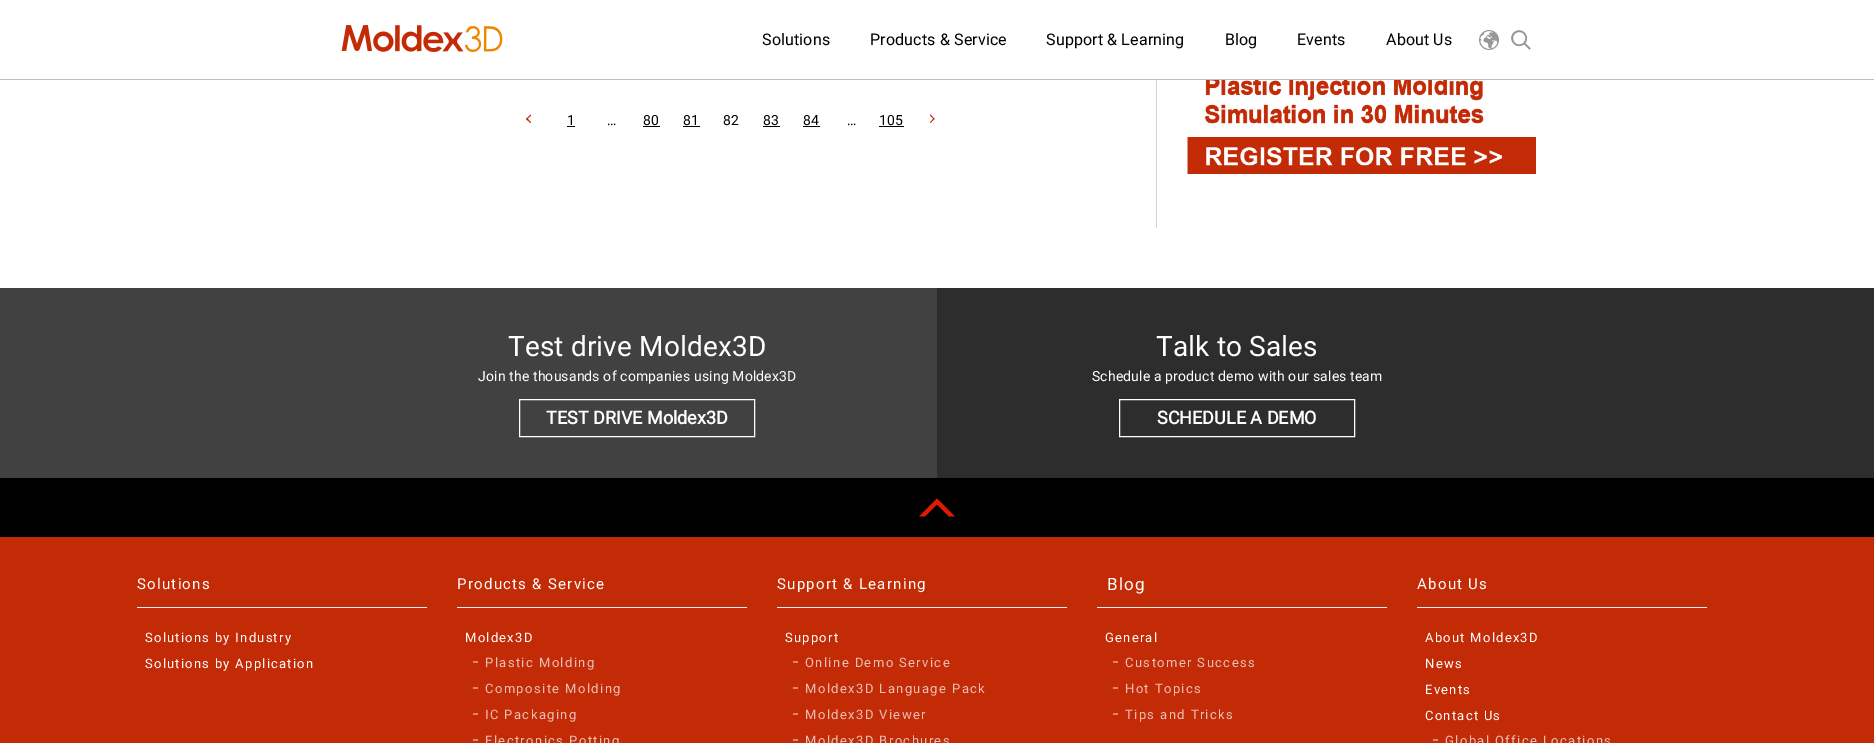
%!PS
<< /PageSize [1874 743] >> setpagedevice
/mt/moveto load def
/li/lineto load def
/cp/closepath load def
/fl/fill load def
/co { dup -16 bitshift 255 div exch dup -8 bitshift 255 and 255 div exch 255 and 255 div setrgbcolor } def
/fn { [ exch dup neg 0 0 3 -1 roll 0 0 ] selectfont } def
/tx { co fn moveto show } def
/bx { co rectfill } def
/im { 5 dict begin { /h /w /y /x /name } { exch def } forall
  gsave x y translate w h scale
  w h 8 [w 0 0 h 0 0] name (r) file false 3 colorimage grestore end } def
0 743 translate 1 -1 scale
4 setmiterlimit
0 0 1874 743 16#FFFFFF bx
0 79 1874 1 16#BFBFBF bx
(media/1.raw) 341 25 162 27 im
(media/2.raw) 1479 30 20 20 im
(media/3.raw) 1511 30 20 20 im
16#C32B07 co
526 119 mt 530.5 114.5 li 531 115.5 li 527 119.5 li cp fl
526 119 mt 527 118 li 531 122.5 li 530.5 123 li cp fl
567 126 8 1 16#000000 bx
643 126 17 1 16#000000 bx
683 126 17 1 16#000000 bx
763 126 17 1 16#000000 bx
803 126 17 1 16#000000 bx
879 126 25 1 16#000000 bx
16#C32B07 co
930.5 114.5 mt 934.5 119 li 934 119.5 li 930 115.5 li cp fl
934 118 mt 934.5 119 li 930.5 123 li 930 122.5 li cp fl
1156 80 1 148 16#D2D2D2 bx
(media/4.raw) 1187 80 349 94 im
0 288 937 190 16#414141 bx
937 288 937 190 16#2D2D2D bx
16#FFFFFF co
519.5 399.5 235 37 rectstroke
1119.5 399.5 235 37 rectstroke
0 478 1874 59 16#000000 bx
16#DF1A00 co
925 516.5 mt 937 504.5 li 949 516.5 li 955 516.5 li 937 498.5 li 919 516.5 li cp fl
0 537 1874 206 16#C32B07 bx
137 607 290 1 16#EDEDED bx
457 607 290 1 16#EDEDED bx
473 661 5 2 16#DD8672 bx
473 687 5 2 16#DD8672 bx
473 713 5 2 16#DD8672 bx
473 739 5 2 16#DD8672 bx
777 607 290 1 16#EDEDED bx
793 661 5 2 16#DD8672 bx
793 687 5 2 16#DD8672 bx
793 713 5 2 16#DD8672 bx
793 739 5 2 16#DD8672 bx
1097 607 290 1 16#EDEDED bx
1113 661 5 2 16#DD8672 bx
1113 687 5 2 16#DD8672 bx
1113 713 5 2 16#DD8672 bx
1417 607 290 1 16#EDEDED bx
1433 739 5 2 16#DD8672 bx
/Roboto-Regular 16 fn
16#000000 co
762 45 mt .15 0 (Solutions) ashow
870 45 mt .15 0 (Products & Service) ashow
1046 45 mt .15 0 (Support & Learning) ashow
1225 45 mt .15 0 (Blog) ashow
1297 45 mt .15 0 (Events) ashow
1386 45 mt .15 0 (About Us) ashow
/Roboto-Regular 14 fn
567 125 mt .15 0 (1) ashow
607 125 mt .15 0 (…) ashow
643 125 mt .15 0 (80) ashow
683 125 mt .15 0 (81) ashow
723 125 mt .15 0 (82) ashow
763 125 mt .15 0 (83) ashow
803 125 mt .15 0 (84) ashow
847 125 mt .15 0 (…) ashow
879 125 mt .15 0 (105) ashow
/Roboto-Regular 28 fn
16#FFFFFF co
508 356 mt .15 0 (Test drive Moldex3D) ashow
/Roboto-Regular 14 fn
478 381 mt .15 0 (Join the thousands of companies using Moldex3D) ashow
(TEST DRIVE Moldex3D) 546 424 /Roboto-Bold 18 16#FFFFFF tx
/Roboto-Regular 28 fn
1156 356 mt .15 0 (Talk to Sales) ashow
/Roboto-Regular 14 fn
1092 381 mt .15 0 (Schedule a product demo with our sales team) ashow
(SCHEDULE A DEMO) 1157 424 /Roboto-Bold 18 16#FFFFFF tx
/Roboto-Regular 15 fn
137 589 mt 1.25 0 (Solutions) ashow
/Roboto-Regular 13 fn
145 642 mt 1.25 0 (Solutions by Industry) ashow
145 668 mt 1.25 0 (Solutions by Application) ashow
/Roboto-Regular 15 fn
457 589 mt 1.25 0 (Products & Service) ashow
/Roboto-Regular 13 fn
465 642 mt 1.25 0 (Moldex3D) ashow
16#EDBFB5 co
485 667 mt 1.4 0 (Plastic Molding) ashow
485 693 mt 1.4 0 (Composite Molding) ashow
485 719 mt 1.4 0 (IC Packaging) ashow
485 745 mt 1.4 0 (Electronics Potting) ashow
/Roboto-Regular 15 fn
16#FFFFFF co
777 589 mt 1.25 0 (Support & Learning) ashow
/Roboto-Regular 13 fn
785 642 mt 1.25 0 (Support) ashow
16#EDBFB5 co
805 667 mt 1.4 0 (Online Demo Service) ashow
805 693 mt 1.4 0 (Moldex3D Language Pack) ashow
805 719 mt 1.4 0 (Moldex3D Viewer) ashow
805 745 mt 1.4 0 (Moldex3D Brochures) ashow
/Roboto-Regular 17 fn
16#FFFFFF co
1107 590 mt 1.25 0 (Blog) ashow
/Roboto-Regular 13 fn
1105 642 mt 1.25 0 (General) ashow
16#EDBFB5 co
1125 667 mt 1.4 0 (Customer Success) ashow
1125 693 mt 1.4 0 (Hot Topics) ashow
1125 719 mt 1.4 0 (Tips and Tricks) ashow
/Roboto-Regular 15 fn
16#FFFFFF co
1417 589 mt 1.25 0 (About Us) ashow
/Roboto-Regular 13 fn
1425 642 mt 1.25 0 (About Moldex3D) ashow
1425 668 mt 1.25 0 (News) ashow
1425 694 mt 1.25 0 (Events) ashow
1425 720 mt 1.25 0 (Contact Us) ashow
16#EDBFB5 co
1445 745 mt 1.4 0 (Global Office Locations) ashow
showpage
